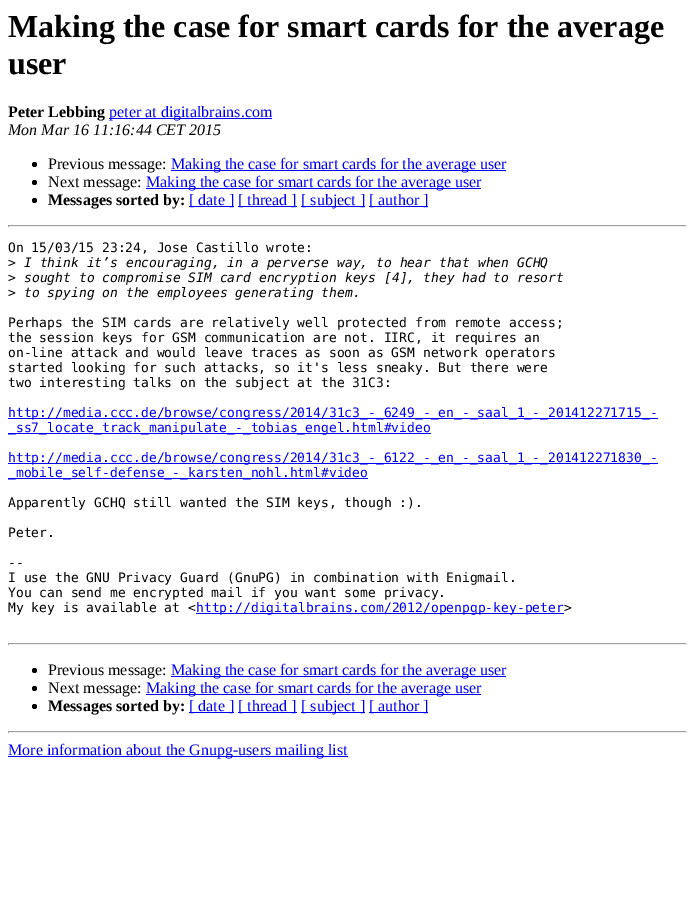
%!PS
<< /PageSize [695 898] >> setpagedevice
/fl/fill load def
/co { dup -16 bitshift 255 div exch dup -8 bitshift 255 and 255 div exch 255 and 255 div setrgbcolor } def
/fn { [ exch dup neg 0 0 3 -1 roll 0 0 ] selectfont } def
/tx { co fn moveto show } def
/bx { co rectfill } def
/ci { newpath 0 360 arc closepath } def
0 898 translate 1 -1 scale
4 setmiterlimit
0 0 695 898 16#FFFFFF bx
109 118 163 1 16#0000EE bx
16#000000 co
34.5 164.5 2.5 ci fl
171 170 335 1 16#0000EE bx
16#000000 co
34.5 182.5 2.5 ci fl
146 188 335 1 16#0000EE bx
16#000000 co
34.5 200.5 2.5 ci fl
189 206 45 1 16#0000EE bx
238 206 59 1 16#0000EE bx
301 206 64 1 16#0000EE bx
369 206 59 1 16#0000EE bx
8 225 679 1 16#9F9F9F bx
686 225 1 2 16#EEEEEE bx
8 226 679 1 16#EEEEEE bx
8 225 1 2 16#9F9F9F bx
8 418 650 1 16#0000EE bx
8 433 423 1 16#0000EE bx
8 463 650 1 16#0000EE bx
8 478 360 1 16#0000EE bx
196 613 368 1 16#0000EE bx
8 643 679 1 16#9F9F9F bx
686 643 1 2 16#EEEEEE bx
8 644 679 1 16#EEEEEE bx
8 643 1 2 16#9F9F9F bx
16#000000 co
34.5 670.5 2.5 ci fl
171 676 335 1 16#0000EE bx
16#000000 co
34.5 688.5 2.5 ci fl
146 694 335 1 16#0000EE bx
16#000000 co
34.5 706.5 2.5 ci fl
189 712 45 1 16#0000EE bx
238 712 59 1 16#0000EE bx
301 712 64 1 16#0000EE bx
369 712 59 1 16#0000EE bx
8 731 679 1 16#9F9F9F bx
686 731 1 2 16#EEEEEE bx
8 732 679 1 16#EEEEEE bx
8 731 1 2 16#9F9F9F bx
8 756 340 1 16#0000EE bx
(Making the case for smart cards for the average) 8 37 /LiberationSerif-Bold 32 16#000000 tx
(user) 8 74 /LiberationSerif-Bold 32 16#000000 tx
(Peter Lebbing) 8 117 /LiberationSerif-Bold 16 16#000000 tx
(peter at digitalbrains.com) 109 117 /LiberationSerif-Regular 16 16#0000EE tx
(Mon Mar 16 11:16:44 CET 2015) 8 135 /LiberationSerif-Italic 16 16#000000 tx
(Previous message:) 48 169 /LiberationSerif-Regular 16 16#000000 tx
(Making the case for smart cards for the average user) 171 169 /LiberationSerif-Regular 16 16#0000EE tx
(Next message:) 48 187 /LiberationSerif-Regular 16 16#000000 tx
(Making the case for smart cards for the average user) 146 187 /LiberationSerif-Regular 16 16#0000EE tx
(Messages sorted by:) 48 205 /LiberationSerif-Bold 16 16#000000 tx
([ date ]) 189 205 /LiberationSerif-Regular 16 16#0000EE tx
([ thread ]) 238 205 /LiberationSerif-Regular 16 16#0000EE tx
([ subject ]) 301 205 /LiberationSerif-Regular 16 16#0000EE tx
([ author ]) 369 205 /LiberationSerif-Regular 16 16#0000EE tx
(On 15/03/15 23:24, Jose Castillo wrote:) 8 252 /DejaVuSansMono-Regular 13 16#000000 tx
(>) 8 267 /DejaVuSansMono-Regular 13 16#000000 tx
(I think it’s encouraging, in a perverse way, to hear that when GCHQ) 24 267 /DejaVuSansMono-Italic 13 16#000000 tx
(>) 8 282 /DejaVuSansMono-Regular 13 16#000000 tx
(sought to compromise SIM card encryption keys [4], they had to resort) 24 282 /DejaVuSansMono-Italic 13 16#000000 tx
(>) 8 297 /DejaVuSansMono-Regular 13 16#000000 tx
(to spying on the employees generating them.) 24 297 /DejaVuSansMono-Italic 13 16#000000 tx
(Perhaps the SIM cards are relatively well protected from remote access;) 8 327 /DejaVuSansMono-Regular 13 16#000000 tx
(the session keys for GSM communication are not. IIRC, it requires an) 8 342 /DejaVuSansMono-Regular 13 16#000000 tx
(on-line attack and would leave traces as soon as GSM network operators) 8 357 /DejaVuSansMono-Regular 13 16#000000 tx
(started looking for such attacks, so it's less sneaky. But there were) 8 372 /DejaVuSansMono-Regular 13 16#000000 tx
(two interesting talks on the subject at the 31C3:) 8 387 /DejaVuSansMono-Regular 13 16#000000 tx
(http://media.ccc.de/browse/congress/2014/31c3_-_6249_-_en_-_saal_1_-_201412271715_-) 8 417 /DejaVuSansMono-Regular 13 16#0000EE tx
(_ss7_locate_track_manipulate_-_tobias_engel.html#video) 8 432 /DejaVuSansMono-Regular 13 16#0000EE tx
(http://media.ccc.de/browse/congress/2014/31c3_-_6122_-_en_-_saal_1_-_201412271830_-) 8 462 /DejaVuSansMono-Regular 13 16#0000EE tx
(_mobile_self-defense_-_karsten_nohl.html#video) 8 477 /DejaVuSansMono-Regular 13 16#0000EE tx
(Apparently GCHQ still wanted the SIM keys, though :\).) 8 507 /DejaVuSansMono-Regular 13 16#000000 tx
(Peter.) 8 537 /DejaVuSansMono-Regular 13 16#000000 tx
(--) 8 567 /DejaVuSansMono-Regular 13 16#000000 tx
(I use the GNU Privacy Guard \(GnuPG\) in combination with Enigmail.) 8 582 /DejaVuSansMono-Regular 13 16#000000 tx
(You can send me encrypted mail if you want some privacy.) 8 597 /DejaVuSansMono-Regular 13 16#000000 tx
(My key is available at <) 8 612 /DejaVuSansMono-Regular 13 16#000000 tx
(http://digitalbrains.com/2012/openpgp-key-peter) 196 612 /DejaVuSansMono-Regular 13 16#0000EE tx
(>) 564 612 /DejaVuSansMono-Regular 13 16#000000 tx
(Previous message:) 48 675 /LiberationSerif-Regular 16 16#000000 tx
(Making the case for smart cards for the average user) 171 675 /LiberationSerif-Regular 16 16#0000EE tx
(Next message:) 48 693 /LiberationSerif-Regular 16 16#000000 tx
(Making the case for smart cards for the average user) 146 693 /LiberationSerif-Regular 16 16#0000EE tx
(Messages sorted by:) 48 711 /LiberationSerif-Bold 16 16#000000 tx
([ date ]) 189 711 /LiberationSerif-Regular 16 16#0000EE tx
([ thread ]) 238 711 /LiberationSerif-Regular 16 16#0000EE tx
([ subject ]) 301 711 /LiberationSerif-Regular 16 16#0000EE tx
([ author ]) 369 711 /LiberationSerif-Regular 16 16#0000EE tx
(More information about the Gnupg-users mailing list) 8 755 /LiberationSerif-Regular 16 16#0000EE tx
showpage
